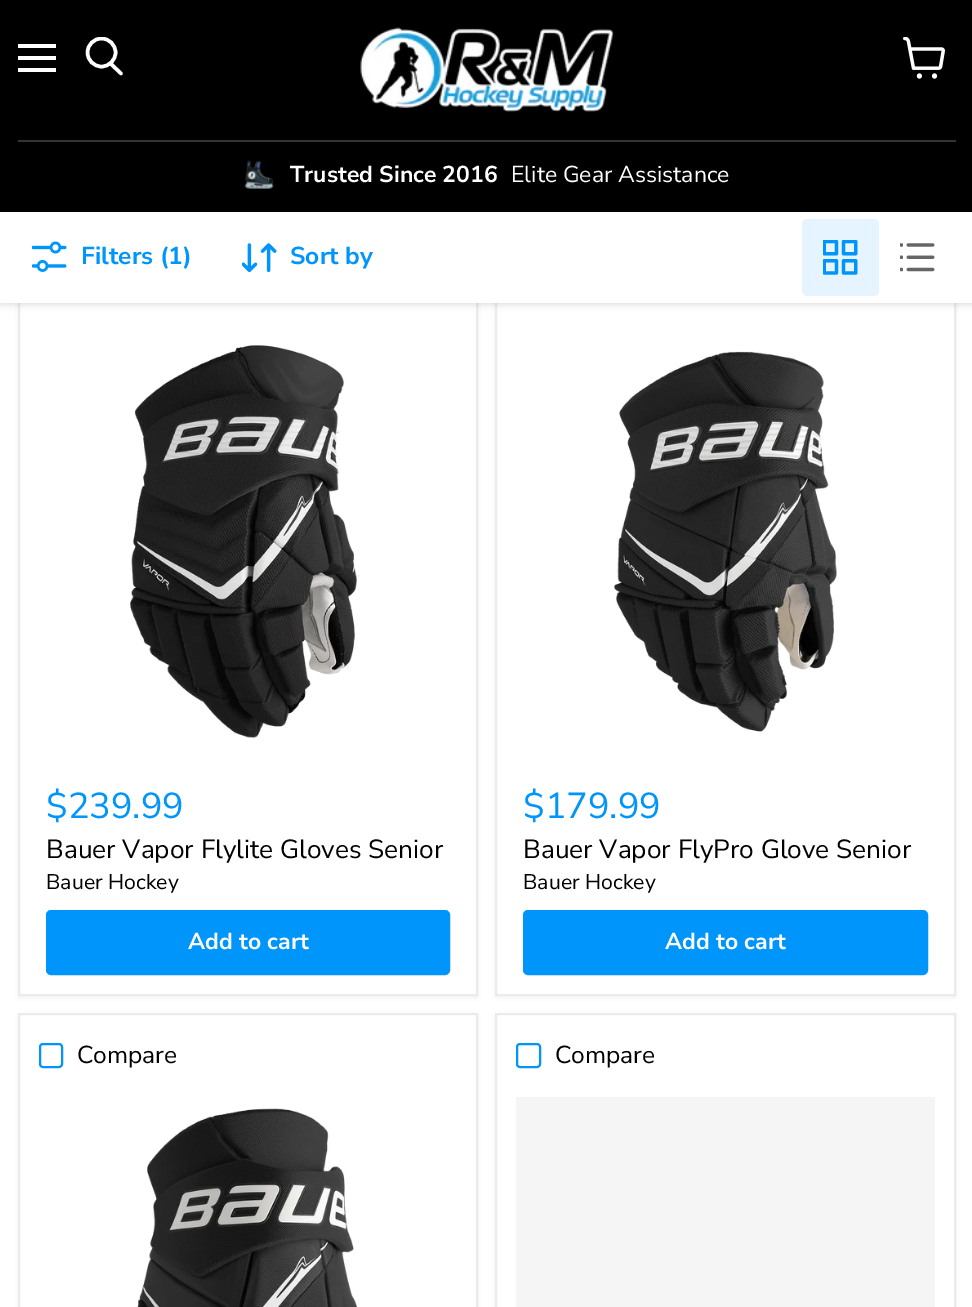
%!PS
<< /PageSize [972 1307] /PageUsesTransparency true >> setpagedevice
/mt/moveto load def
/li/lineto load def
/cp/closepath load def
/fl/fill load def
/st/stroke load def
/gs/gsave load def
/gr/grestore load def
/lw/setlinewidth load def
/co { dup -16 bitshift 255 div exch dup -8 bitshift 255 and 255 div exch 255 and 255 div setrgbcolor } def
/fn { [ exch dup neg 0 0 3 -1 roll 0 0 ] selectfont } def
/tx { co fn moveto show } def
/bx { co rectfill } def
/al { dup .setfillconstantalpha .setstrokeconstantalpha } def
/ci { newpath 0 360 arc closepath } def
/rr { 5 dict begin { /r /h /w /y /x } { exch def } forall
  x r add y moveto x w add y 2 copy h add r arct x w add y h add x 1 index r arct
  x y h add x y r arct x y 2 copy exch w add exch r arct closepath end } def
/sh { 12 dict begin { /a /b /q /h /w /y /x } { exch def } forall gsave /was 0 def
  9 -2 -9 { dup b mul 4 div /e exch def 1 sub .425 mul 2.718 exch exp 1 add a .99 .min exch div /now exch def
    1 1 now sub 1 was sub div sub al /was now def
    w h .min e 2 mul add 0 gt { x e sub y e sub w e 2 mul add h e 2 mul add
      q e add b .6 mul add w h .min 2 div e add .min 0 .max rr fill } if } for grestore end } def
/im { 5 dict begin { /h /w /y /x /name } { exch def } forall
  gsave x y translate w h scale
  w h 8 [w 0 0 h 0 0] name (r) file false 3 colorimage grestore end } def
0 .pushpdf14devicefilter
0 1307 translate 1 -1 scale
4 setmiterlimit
0 0 972 1307 16#FFFFFF bx
16#808080 co
18 250 460 748 0 3.5 .11 sh
20 303 456 691 16#FFFFFF bx
16#EBEBEB co
2 lw
19 250 458 745 rectstroke
16#808080 co
495 250 461 748 0 3.5 .11 sh
497 303 457 691 16#FFFFFF bx
16#EBEBEB co
496 250 459 745 rectstroke
16#808080 co
0 214 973 91 0 3.5 .25 sh
0 0 972 212 16#000000 bx
18 44 38 4 16#FFFFFF bx
18 56 38 4 16#FFFFFF bx
18 68 38 4 16#FFFFFF bx
3.5 lw
1 setlinecap
121 73.5 mt 111 64 li st
gs
84 37 40 42 rectclip
0 setlinecap
101.5 52.5 14 ci st
gr
(media/1.raw) 903 37 42 42 im
(media/2.raw) 360 27 254 85 im
18 140 938 2 16#333333 bx
(media/3.raw) 244 160 30 29 im
0 212 972 91 16#FFFFFF bx
(media/4.raw) 32 241 35 31 im
(media/5.raw) 242 243 35 30 im
16#E6F4FF co
802 219 77 77 5 rr fl
(media/6.raw) 823 240 35 35 im
(media/7.raw) 900 243 35 29 im
(media/8.raw) 130 345 231 393 im
16#0095FA co
47 911 402 63 4 rr gs fl gr
2 lw
0 setlinecap
st
(media/9.raw) 614 351 223 381 im
524 911 403 63 4 rr gs fl gr
st
16#808080 co
18 1015 460 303 0 3.5 .11 sh
16#FFFFFF co
19 1014 mt 477 1014 li 477 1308 li 19 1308 li cp gs fl gr
16#EBEBEB co
st
16#0095FA co
40 1044 22 23 3 rr st
(media/10.raw) 137 1108 220 199 im
16#808080 co
495 1015 461 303 0 3.5 .11 sh
16#FFFFFF co
496 1014 mt 955 1014 li 955 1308 li 496 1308 li cp gs fl gr
16#EBEBEB co
st
16#0095FA co
517 1044 23 23 3 rr st
516 1097 419 210 16#F5F5F5 bx
(Trusted Since 2016) 290 182 /NunitoSans-Bold 23 16#FFFFFF tx
(Elite Gear Assistance) 511 182 /NunitoSans-Regular 23 16#FFFFFF tx
(Filters \(1\)) 81 264 /NunitoSans-Bold 24.5 16#0095FA tx
(Sort by) 290 264 /NunitoSans-Bold 24.5 16#0095FA tx
($239.99) 46 818 /NunitoSans-Regular 36 16#0095FA tx
(Bauer Vapor Flylite Gloves Senior) 46 858 /NunitoSans-Regular 26.25 16#000000 tx
(Bauer Hockey) 46 889 /NunitoSans-Regular 21.25 16#000000 tx
(Add to cart) 188 949 /NunitoSans-Bold 23 16#FFFFFF tx
($179.99) 523 818 /NunitoSans-Regular 36 16#0095FA tx
(Bauer Vapor FlyPro Glove Senior) 523 858 /NunitoSans-Regular 26.25 16#000000 tx
(Bauer Hockey) 523 889 /NunitoSans-Regular 21.25 16#000000 tx
(Add to cart) 665 949 /NunitoSans-Bold 23 16#FFFFFF tx
(Compare) 77 1063 /NunitoSans-Regular 24.5 16#000000 tx
(Compare) 555 1063 /NunitoSans-Regular 24.5 16#000000 tx
.poppdf14devicefilter showpage
